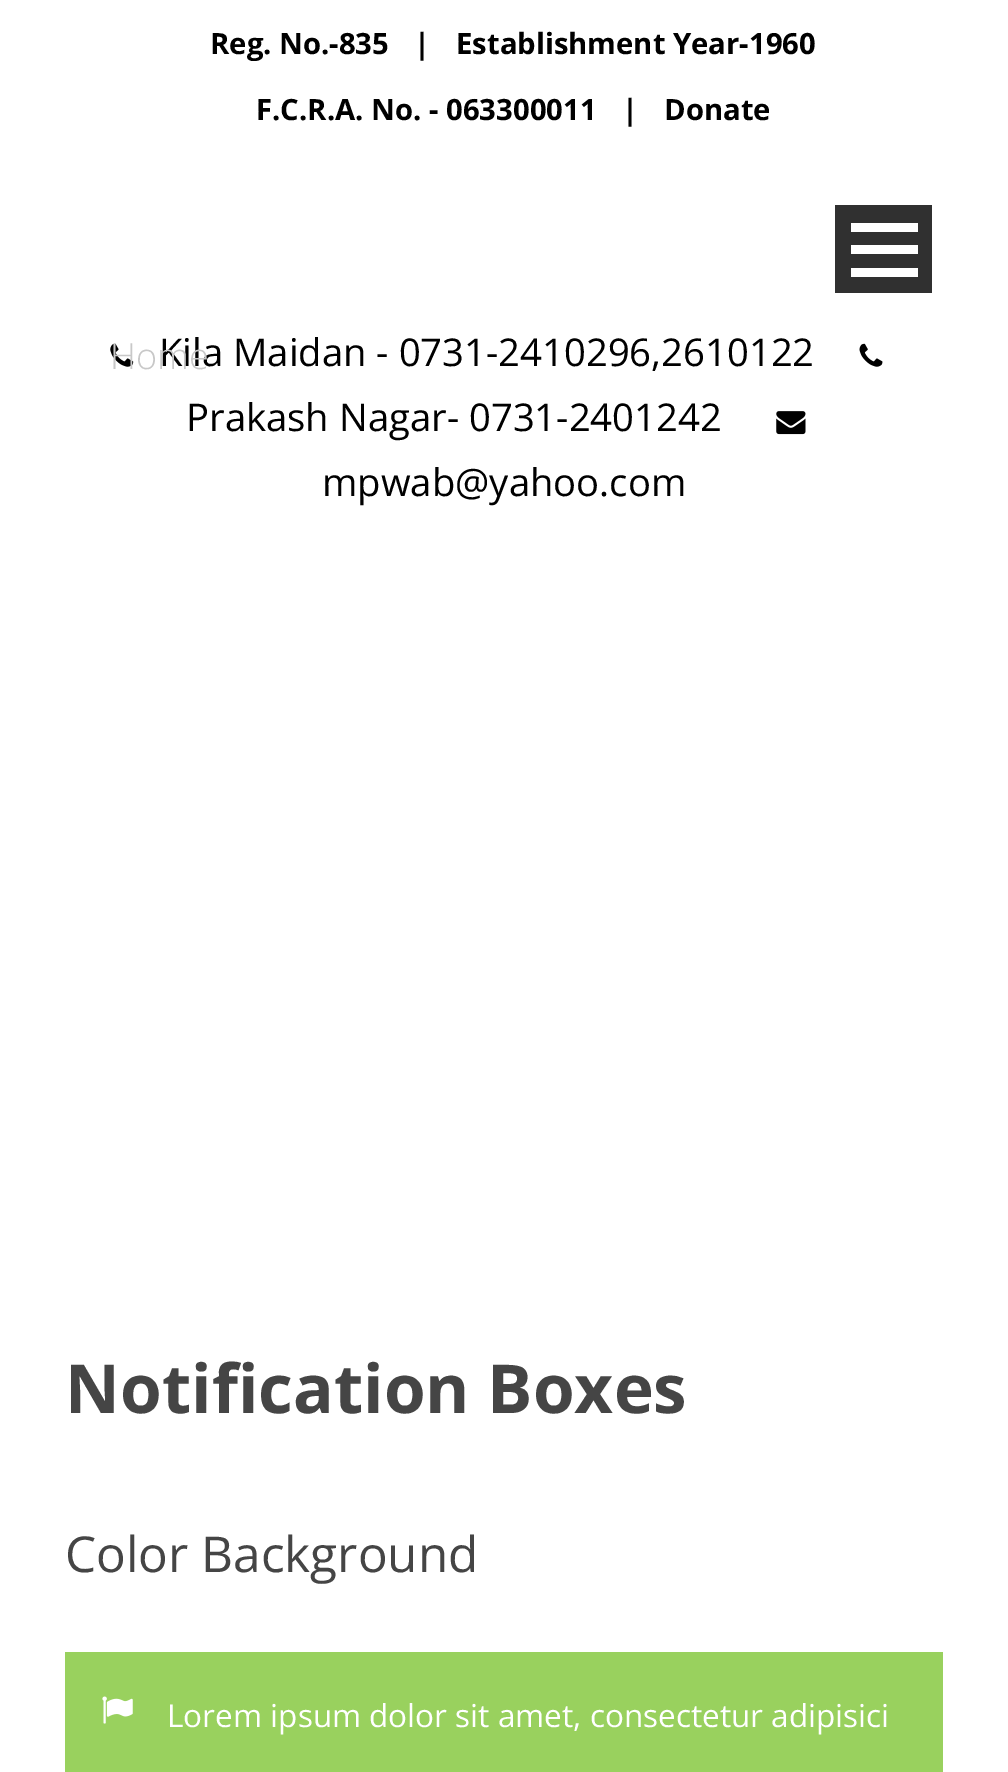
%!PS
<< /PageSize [1008 1772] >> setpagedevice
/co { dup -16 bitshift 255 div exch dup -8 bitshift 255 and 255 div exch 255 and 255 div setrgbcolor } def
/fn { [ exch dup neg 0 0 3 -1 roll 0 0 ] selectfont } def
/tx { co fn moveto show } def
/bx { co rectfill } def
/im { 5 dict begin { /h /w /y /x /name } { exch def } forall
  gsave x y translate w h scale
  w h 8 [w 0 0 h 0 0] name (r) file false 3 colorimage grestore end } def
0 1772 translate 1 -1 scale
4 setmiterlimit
0 0 1008 1772 16#FFFFFF bx
835 205 97 88 16#303030 bx
851 268 67 9 16#FFFFFF bx
851 245 67 9 16#FFFFFF bx
851 223 67 9 16#FFFFFF bx
(media/1.raw) 110 343 24 24 im
(media/2.raw) 859 343 24 24 im
(media/3.raw) 776 411 30 24 im
65 1652 878 120 16#99D15E bx
(media/4.raw) 102 1696 31 28 im
(Reg. No.-835) 210 54 /OpenSans-Bold 29.25 16#000000 tx
(|) 414 54 /OpenSans-Bold 29.25 16#000000 tx
(Establishment Year-1960) 456 54 /OpenSans-Bold 29.25 16#000000 tx
(F.C.R.A. No. - 063300011) 256 120 /OpenSans-Bold 29.25 16#000000 tx
(|) 622 120 /OpenSans-Bold 29.25 16#000000 tx
(Donate) 664 120 /OpenSans-Bold 29.25 16#000000 tx
(Kila Maidan - 0731-2410296,2610122) 159 366 /OpenSans-Regular 38.25 16#000000 tx
(Home) 110 369 /OpenSans-Light 36 16#C8C8C8 tx
(Prakash Nagar- 0731-2401242) 186 431 /OpenSans-Regular 38.25 16#000000 tx
(mpwab@yahoo.com) 322 496 /OpenSans-Regular 38.25 16#000000 tx
(Notification Boxes) 65 1413 /OpenSans-Bold 67.5 16#454545 tx
(Color Background) 65 1572 /OpenSans-Regular 49.5 16#454545 tx
(Lorem ipsum dolor sit amet, consectetur adipisici) 167 1727 /OpenSans-Regular 31.5 16#FFFFFF tx
showpage
